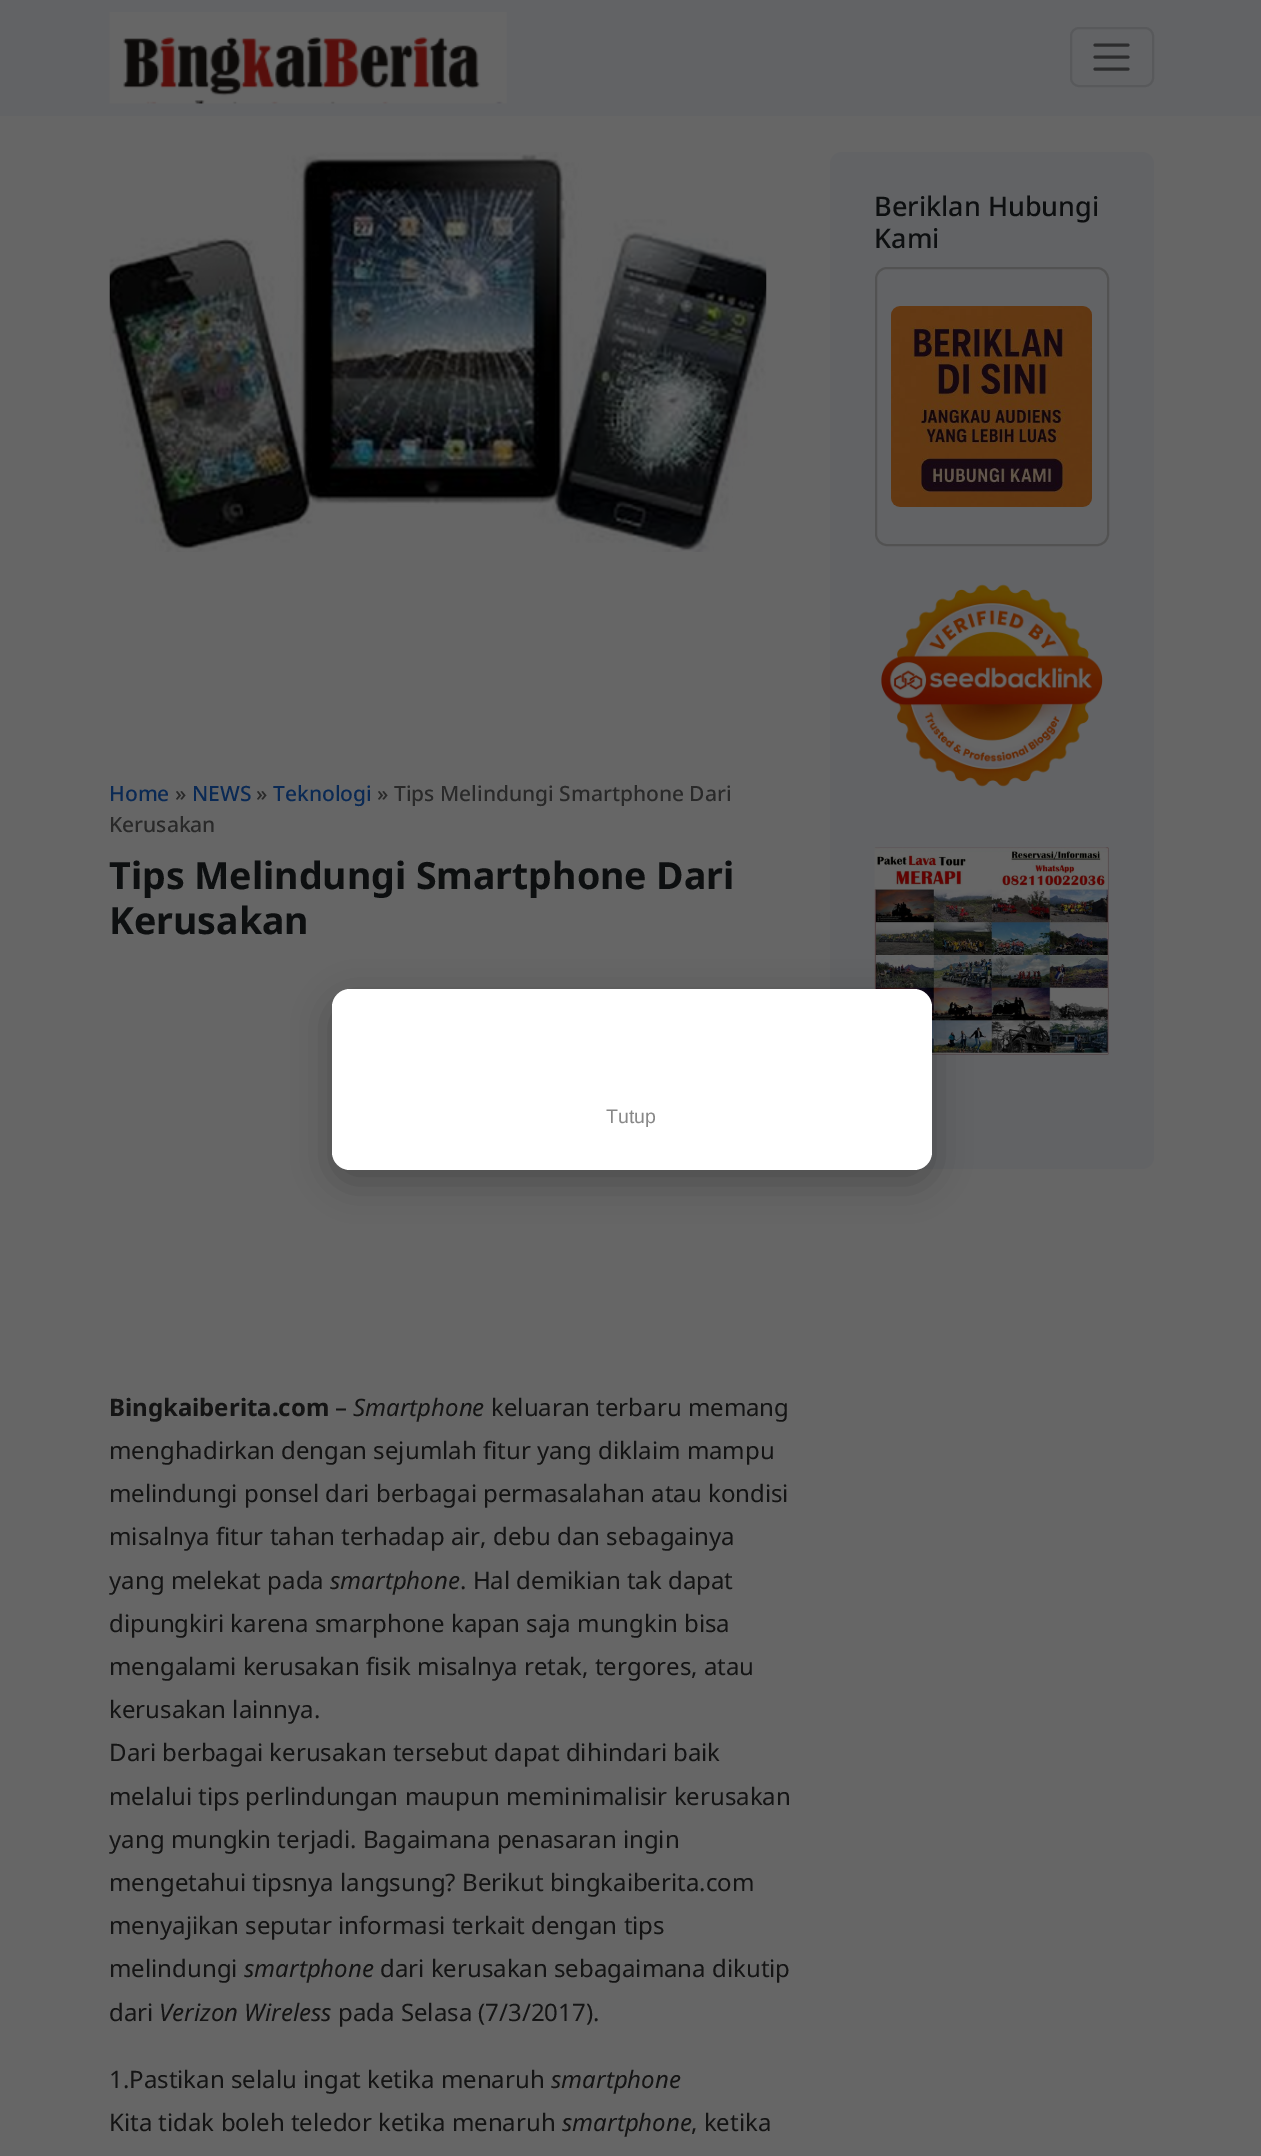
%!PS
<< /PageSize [1261 2156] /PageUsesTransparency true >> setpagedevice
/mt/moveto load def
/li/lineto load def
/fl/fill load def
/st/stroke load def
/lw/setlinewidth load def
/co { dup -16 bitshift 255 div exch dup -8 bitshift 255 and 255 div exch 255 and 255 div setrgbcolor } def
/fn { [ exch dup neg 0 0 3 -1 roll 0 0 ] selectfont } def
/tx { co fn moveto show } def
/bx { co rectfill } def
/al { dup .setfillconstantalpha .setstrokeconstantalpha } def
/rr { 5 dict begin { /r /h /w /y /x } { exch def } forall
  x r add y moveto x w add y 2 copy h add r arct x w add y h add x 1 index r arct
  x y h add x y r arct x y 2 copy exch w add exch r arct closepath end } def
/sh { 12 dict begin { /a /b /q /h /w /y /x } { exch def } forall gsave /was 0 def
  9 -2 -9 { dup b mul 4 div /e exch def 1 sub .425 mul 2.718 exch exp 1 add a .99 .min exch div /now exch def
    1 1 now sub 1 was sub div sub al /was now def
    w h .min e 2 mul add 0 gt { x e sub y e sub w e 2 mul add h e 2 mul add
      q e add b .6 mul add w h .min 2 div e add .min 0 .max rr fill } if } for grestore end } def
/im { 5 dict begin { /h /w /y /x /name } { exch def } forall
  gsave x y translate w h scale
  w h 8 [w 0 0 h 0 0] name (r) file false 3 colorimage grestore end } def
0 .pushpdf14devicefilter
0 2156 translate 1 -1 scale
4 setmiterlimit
0 0 1261 2156 16#666666 bx
16#626365 co
830 152 324 1017 12 rr fl
16#525252 co
2 lw
876 268 232 277 11 rr st
(media/1.raw) 891 306 201 201 im
(media/2.raw) 881 584 222 203 im
(media/3.raw) 874 847 235 208 im
(media/4.raw) 109 152 658 400 im
0 0 1261 116 16#626365 bx
(media/5.raw) 109 12 398 92 im
16#58595B co
1071 28 82 58 8 rr st
16#2C2C2D co
3 lw
1 setlinecap
1095 45 mt 1128 45 li 1095 57 mt 1128 57 li 1095 69 mt 1128 69 li st
16#000000 co
332 1001 600 181 18 19 .25 sh
16#FFFFFF co
332 989 600 181 18 rr fl
(Beriklan Hubungi) 874 216 /NotoSans-Medium 27 16#0D0F10 tx
(Kami) 874 248 /NotoSans-Medium 27 16#0D0F10 tx
(Home) 109 801 /NotoSans-Medium 21 16#0A2954 tx
(») 175 801 /NotoSans-Medium 21 16#292929 tx
(NEWS) 192 801 /NotoSans-Medium 21 16#0A2954 tx
(») 256 801 /NotoSans-Medium 21 16#292929 tx
(Teknologi) 273 801 /NotoSans-Medium 21 16#0A2954 tx
(» Tips Melindungi Smartphone Dari) 377 801 /NotoSans-Medium 21 16#292929 tx
(Kerusakan) 109 832 /NotoSans-Medium 21 16#292929 tx
(Tips Melindungi Smartphone Dari) 109 889 /NotoSans-Bold 37.5 16#0D0F10 tx
(Kerusakan) 109 934 /NotoSans-Bold 37.5 16#0D0F10 tx
(Bingkaiberita.com) 109 1416 /NotoSans-Bold 24 16#141414 tx
(–) 335 1416 /NotoSans-Regular 24 16#141414 tx
(Smartphone) 353 1416 /NotoSans-Italic 24 16#141414 tx
(keluaran terbaru memang) 491 1416 /NotoSans-Regular 24 16#141414 tx
(menghadirkan dengan sejumlah fitur yang diklaim mampu) 109 1459 /NotoSans-Regular 24 16#141414 tx
(melindungi ponsel dari berbagai permasalahan atau kondisi) 109 1502 /NotoSans-Regular 24 16#141414 tx
(misalnya fitur tahan terhadap air, debu dan sebagainya) 109 1545 /NotoSans-Regular 24 16#141414 tx
(yang melekat pada) 109 1589 /NotoSans-Regular 24 16#141414 tx
(smartphone) 330 1589 /NotoSans-Italic 24 16#141414 tx
(. Hal demikian tak dapat) 460 1589 /NotoSans-Regular 24 16#141414 tx
(dipungkiri karena smarphone kapan saja mungkin bisa) 109 1632 /NotoSans-Regular 24 16#141414 tx
(mengalami kerusakan fisik misalnya retak, tergores, atau) 109 1675 /NotoSans-Regular 24 16#141414 tx
(kerusakan lainnya.) 109 1718 /NotoSans-Regular 24 16#141414 tx
(Dari berbagai kerusakan tersebut dapat dihindari baik) 109 1761 /NotoSans-Regular 24 16#141414 tx
(melalui tips perlindungan maupun meminimalisir kerusakan) 109 1805 /NotoSans-Regular 24 16#141414 tx
(yang mungkin terjadi. Bagaimana penasaran ingin) 109 1848 /NotoSans-Regular 24 16#141414 tx
(mengetahui tipsnya langsung? Berikut bingkaiberita.com) 109 1891 /NotoSans-Regular 24 16#141414 tx
(menyajikan seputar informasi terkait dengan tips) 109 1934 /NotoSans-Regular 24 16#141414 tx
(melindungi) 109 1977 /NotoSans-Regular 24 16#141414 tx
(smartphone) 244 1977 /NotoSans-Italic 24 16#141414 tx
(dari kerusakan sebagaimana dikutip) 380 1977 /NotoSans-Regular 24 16#141414 tx
(dari) 109 2021 /NotoSans-Regular 24 16#141414 tx
(Verizon Wireless) 159 2021 /NotoSans-Italic 24 16#141414 tx
(pada Selasa \(7/3/2017\).) 338 2021 /NotoSans-Regular 24 16#141414 tx
(1.Pastikan selalu ingat ketika menaruh) 109 2088 /NotoSans-Regular 24 16#141414 tx
(smartphone) 551 2088 /NotoSans-Italic 24 16#141414 tx
(Kita tidak boleh teledor ketika menaruh) 109 2131 /NotoSans-Regular 24 16#141414 tx
(smartphone) 562 2131 /NotoSans-Italic 24 16#141414 tx
(, ketika) 691 2131 /NotoSans-Regular 24 16#141414 tx
(Tutup) 606 1123 /LiberationSans-Regular 19.5 16#888888 tx
.poppdf14devicefilter showpage
